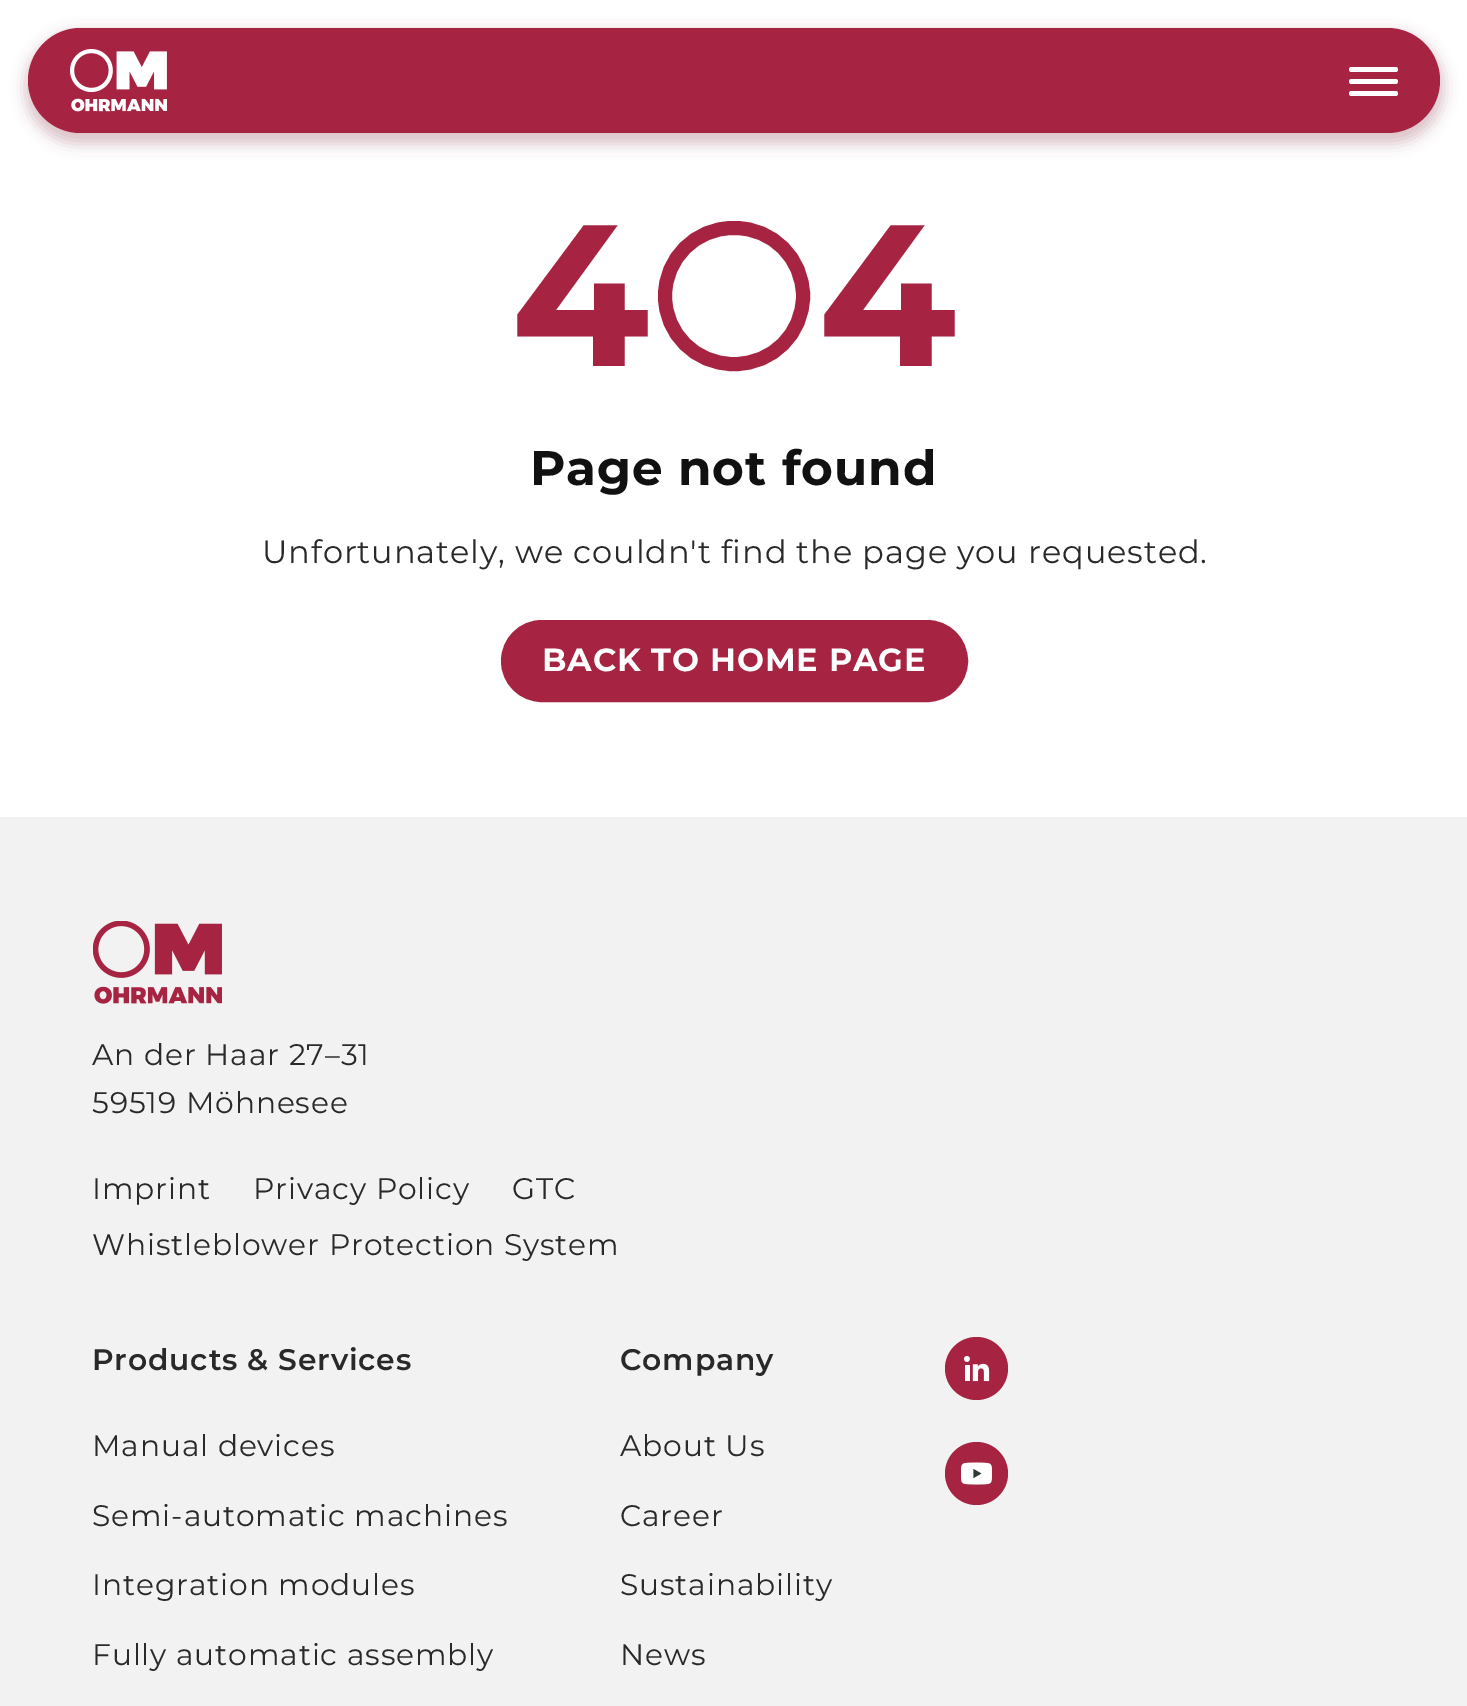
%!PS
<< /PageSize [1467 1706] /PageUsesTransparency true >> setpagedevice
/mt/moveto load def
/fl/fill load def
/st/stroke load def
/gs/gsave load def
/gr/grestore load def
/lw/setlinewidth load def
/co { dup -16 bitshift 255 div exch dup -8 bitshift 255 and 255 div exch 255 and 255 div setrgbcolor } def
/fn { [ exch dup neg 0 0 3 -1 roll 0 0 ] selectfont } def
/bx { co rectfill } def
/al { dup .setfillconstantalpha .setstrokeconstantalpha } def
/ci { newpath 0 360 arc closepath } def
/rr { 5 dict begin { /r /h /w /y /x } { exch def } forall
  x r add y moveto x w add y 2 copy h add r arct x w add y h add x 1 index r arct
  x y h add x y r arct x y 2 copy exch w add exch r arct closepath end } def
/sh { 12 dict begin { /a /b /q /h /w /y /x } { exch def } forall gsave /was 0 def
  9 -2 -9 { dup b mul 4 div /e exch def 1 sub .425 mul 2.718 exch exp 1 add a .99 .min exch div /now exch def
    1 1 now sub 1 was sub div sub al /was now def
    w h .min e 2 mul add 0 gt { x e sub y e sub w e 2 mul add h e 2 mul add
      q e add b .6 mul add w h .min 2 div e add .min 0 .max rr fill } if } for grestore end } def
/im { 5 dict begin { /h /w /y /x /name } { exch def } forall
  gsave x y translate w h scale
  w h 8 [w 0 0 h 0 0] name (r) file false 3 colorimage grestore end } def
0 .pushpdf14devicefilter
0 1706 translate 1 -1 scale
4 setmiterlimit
0 0 1467 1706 16#FFFFFF bx
16#6E172B co
25 32 1419 112 56 7 .25 sh
16#A62341 co
28 28 1412 105 52.5 rr fl
(media/1.raw) 70 49 97 63 im
16#FFFFFF co
1349 67 49 5 2.5 rr fl
1349 79 49 5 2.5 rr fl
1349 91 49 5 2.5 rr fl
16#A62341 co
14 lw
665 228 138 136 68 rr st
503 622 463 78 39 rr gs fl gr
4 lw
st
0 817 1467 889 16#F2F2F2 bx
(media/2.raw) 93 921 129 83 im
16#A62341 co
976.5 1368.5 31.5 ci fl
(media/3.raw) 963 1355 27 27 im
976.5 1473.5 31.5 ci fl
(media/4.raw) 961 1462 31 23 im
/Montserrat-Bold 201 fn
511 366 mt .88 0 (4) ashow
818 366 mt .88 0 (4) ashow
/Montserrat-Bold 48.5 fn
16#111111 co
530 485 mt .88 0 (Page not found) ashow
/Montserrat-Regular 32.05 fn
16#292929 co
262 563 mt .88 0 (Unfortunately, we couldn't find the page you requested.) ashow
/Montserrat-Bold 32.05 fn
16#FFFFFF co
542 671 mt .88 0 (BACK TO HOME PAGE) ashow
/Montserrat-Regular 29.75 fn
16#292929 co
92 1065 mt .88 0 (An der Haar 27–31) ashow
92 1113 mt .88 0 (59519 Möhnesee) ashow
92 1199 mt .88 0 (Imprint) ashow
253 1199 mt .88 0 (Privacy Policy) ashow
512 1199 mt .88 0 (GTC) ashow
92 1255 mt .88 0 (Whistleblower Protection System) ashow
/Montserrat-SemiBold 29.75 fn
92 1370 mt .88 0 (Products & Services) ashow
/Montserrat-Regular 29.75 fn
92 1456 mt .88 0 (Manual devices) ashow
92 1526 mt .88 0 (Semi-automatic machines) ashow
92 1595 mt .88 0 (Integration modules) ashow
92 1665 mt .88 0 (Fully automatic assembly) ashow
/Montserrat-SemiBold 29.75 fn
620 1370 mt .88 0 (Company) ashow
/Montserrat-Regular 29.75 fn
620 1456 mt .88 0 (About Us) ashow
620 1526 mt .88 0 (Career) ashow
620 1595 mt .88 0 (Sustainability) ashow
620 1665 mt .88 0 (News) ashow
.poppdf14devicefilter showpage
